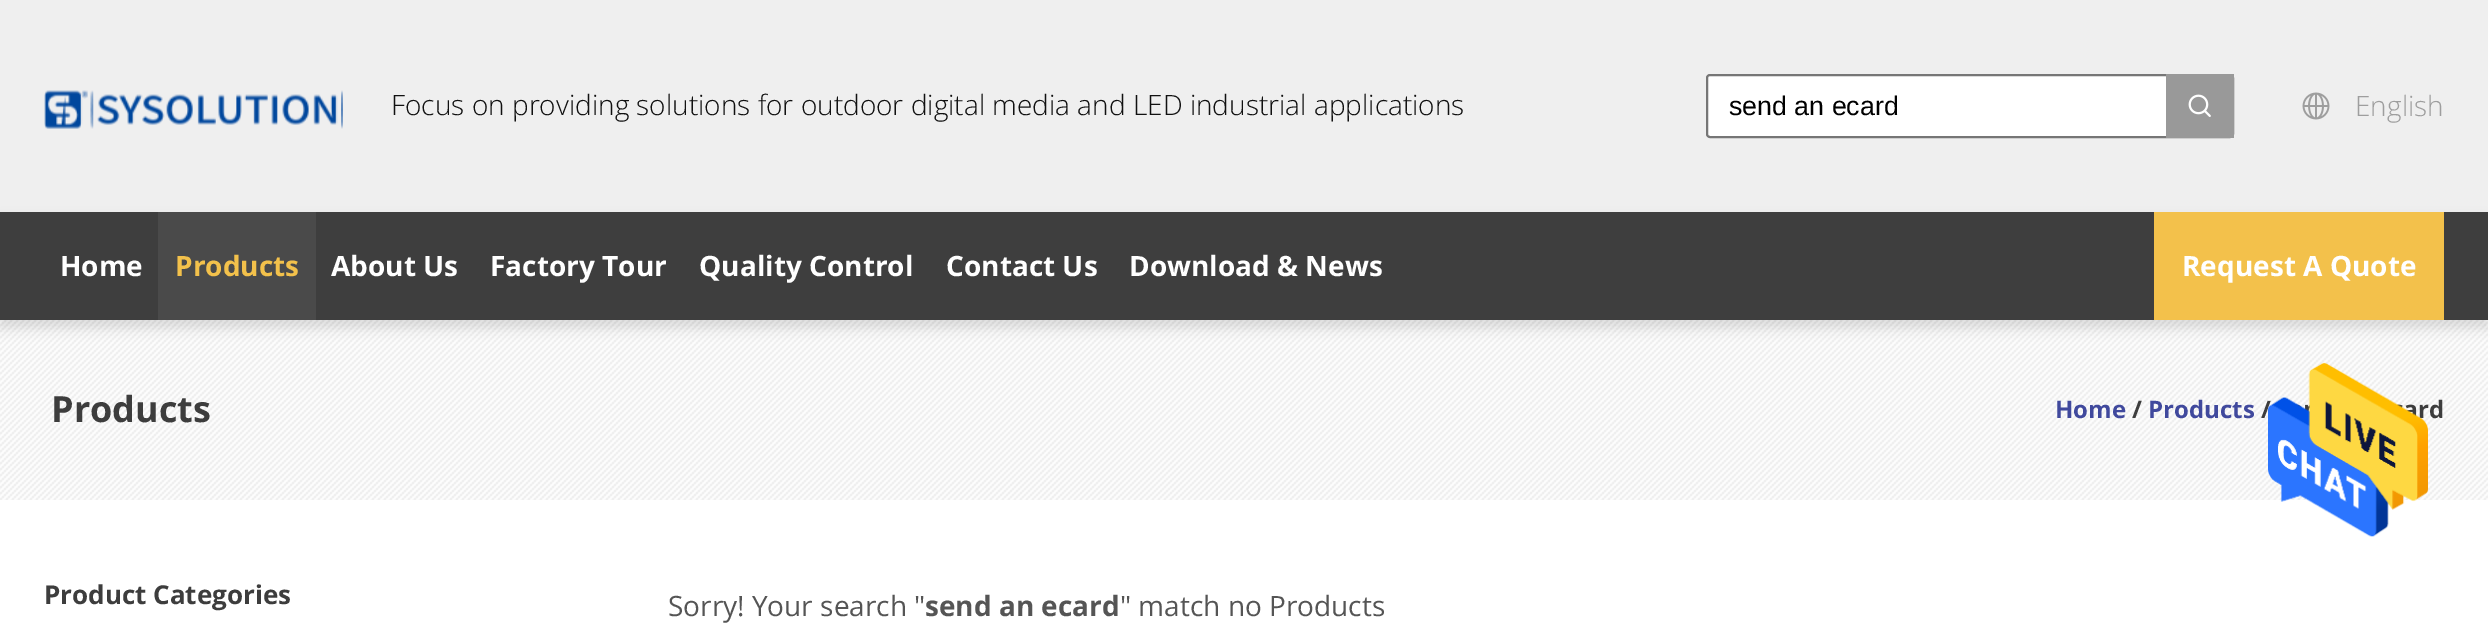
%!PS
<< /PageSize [2488 631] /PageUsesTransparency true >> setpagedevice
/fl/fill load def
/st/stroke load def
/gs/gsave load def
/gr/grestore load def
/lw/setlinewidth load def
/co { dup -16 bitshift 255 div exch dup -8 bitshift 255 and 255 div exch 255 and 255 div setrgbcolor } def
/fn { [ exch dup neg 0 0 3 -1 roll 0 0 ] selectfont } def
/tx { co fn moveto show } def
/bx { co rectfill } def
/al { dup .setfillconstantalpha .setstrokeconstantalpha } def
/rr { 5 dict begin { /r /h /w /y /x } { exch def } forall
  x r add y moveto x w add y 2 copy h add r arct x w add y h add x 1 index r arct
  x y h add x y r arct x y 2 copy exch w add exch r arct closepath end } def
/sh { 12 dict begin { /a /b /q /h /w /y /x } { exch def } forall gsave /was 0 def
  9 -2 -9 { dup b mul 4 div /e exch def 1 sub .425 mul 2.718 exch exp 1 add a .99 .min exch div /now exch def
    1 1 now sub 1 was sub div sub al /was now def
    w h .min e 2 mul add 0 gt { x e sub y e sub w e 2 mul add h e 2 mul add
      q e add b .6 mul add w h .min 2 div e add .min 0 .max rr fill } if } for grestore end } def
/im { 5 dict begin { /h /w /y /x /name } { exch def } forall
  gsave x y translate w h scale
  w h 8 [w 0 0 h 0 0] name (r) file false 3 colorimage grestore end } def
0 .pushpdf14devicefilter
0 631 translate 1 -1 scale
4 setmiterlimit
0 0 2488 631 16#FFFFFF bx
0 0 2488 212 16#EFEFEF bx
(media/1.raw) 44 90 299 39 im
16#FFFFFF co
1707 75 526 62 3 rr gs fl gr
16#767676 co
2 lw
st
2166 74 68 64 16#999999 bx
(media/2.raw) 2188 94 23 23 im
(media/3.raw) 2302 92 28 28 im
(media/5.raw) 0 320 2488 180 im
16#292929 co
0 220 2488 108 0 6 .15 sh
0 212 2488 108 16#3E3E3E bx
158 212 158 108 16#4A4A4A bx
2154 212 290 108 16#F3C14B bx
(Focus on providing solutions for outdoor digital media and LED industrial applications) 391 115 /OpenSans-Light 28 16#111111 tx
(send an ecard) 1729 115 /LiberationSans-Regular 26.75 16#000000 tx
(English) 2355 116 /OpenSans-Light 28 16#9E9E9E tx
(Home) 60 276 /OpenSans-Bold 28 16#FFFFFF tx
(Products) 175 276 /OpenSans-Bold 28 16#F3C14B tx
(About Us) 331 276 /OpenSans-Bold 28 16#FFFFFF tx
(Factory Tour) 490 276 /OpenSans-Bold 28 16#FFFFFF tx
(Quality Control) 699 276 /OpenSans-Bold 28 16#FFFFFF tx
(Contact Us) 946 276 /OpenSans-Bold 28 16#FFFFFF tx
(Download & News) 1129 276 /OpenSans-Bold 28 16#FFFFFF tx
(Request A Quote) 2182 276 /OpenSans-Bold 28 16#FFFFFF tx
(Products) 51 422 /OpenSans-Bold 36 16#3D3D3D tx
(Home) 2055 418 /OpenSans-Bold 24 16#40499D tx
(/) 2132 418 /OpenSans-Bold 24 16#3D3D3D tx
(Products) 2148 418 /OpenSans-Bold 24 16#40499D tx
(/) 2261 418 /OpenSans-Bold 24 16#3D3D3D tx
(rd) 2418 418 /OpenSans-Bold 24 16#3D3D3D tx
(media/4.raw) 2268 362 160 175 im
(Product Categories) 44 604 /OpenSans-Bold 26 16#3D3D3D tx
(Sorry! Your search ") 668 616 /OpenSans-Regular 28 16#555555 tx
(send an ecard) 925 616 /OpenSans-Bold 28 16#555555 tx
(" match no Products) 1120 616 /OpenSans-Regular 28 16#555555 tx
.poppdf14devicefilter showpage
